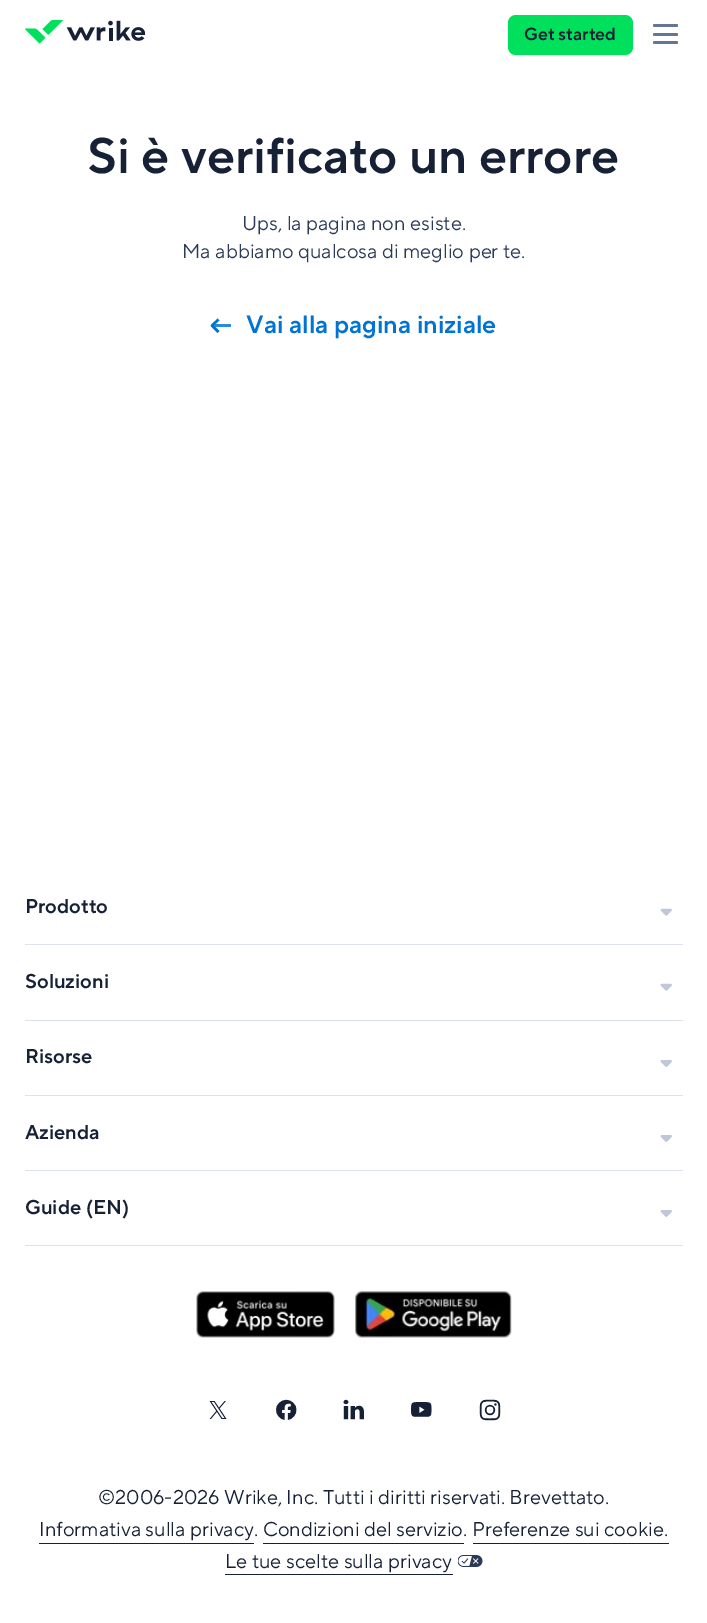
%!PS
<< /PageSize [707 1623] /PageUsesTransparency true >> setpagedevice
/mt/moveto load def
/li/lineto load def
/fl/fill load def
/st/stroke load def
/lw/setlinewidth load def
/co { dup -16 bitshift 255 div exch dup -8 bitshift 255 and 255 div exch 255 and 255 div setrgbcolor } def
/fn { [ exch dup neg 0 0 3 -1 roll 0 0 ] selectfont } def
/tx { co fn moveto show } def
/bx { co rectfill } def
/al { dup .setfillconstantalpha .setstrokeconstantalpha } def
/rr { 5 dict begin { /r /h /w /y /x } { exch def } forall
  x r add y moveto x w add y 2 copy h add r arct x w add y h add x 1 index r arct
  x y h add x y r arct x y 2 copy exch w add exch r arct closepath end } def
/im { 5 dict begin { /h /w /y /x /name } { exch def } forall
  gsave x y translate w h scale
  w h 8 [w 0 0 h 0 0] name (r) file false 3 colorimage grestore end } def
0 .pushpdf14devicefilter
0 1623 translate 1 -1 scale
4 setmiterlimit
0 0 707 1623 16#FFFFFF bx
(media/1.raw) 25 20 120 24 im
16#00E05C co
508 15 125 40 8 rr fl
16#657694 co
653 33 25 3 1.5 rr fl
653 24 25 3 1.5 rr fl
653 41 25 3 1.5 rr fl
16#0073D3 co
2.5 lw
1 setlinejoin
218.5 319.5 mt 212 325.5 li 218.5 332 li st
0.83 al
214 324 17 3 16#0073D3 bx
1 al
25 944 658 1 16#DCE1EB bx
(media/2.raw) 660 908 12 8 im
25 1020 658 1 16#DCE1EB bx
(media/2.raw) 660 983 12 8 im
25 1095 658 1 16#DCE1EB bx
(media/3.raw) 660 1060 12 7 im
25 1170 658 1 16#DCE1EB bx
(media/3.raw) 660 1135 12 7 im
25 1245 658 1 16#DCE1EB bx
(media/3.raw) 660 1210 12 7 im
(media/4.raw) 196 1291 139 47 im
(media/5.raw) 355 1291 157 47 im
(media/6.raw) 209 1401 18 18 im
(media/7.raw) 276 1399 21 21 im
(media/8.raw) 343 1399 21 21 im
(media/9.raw) 411 1402 21 15 im
(media/10.raw) 479 1399 22 22 im
39 1543 215 1 16#162136 bx
263 1543 201 1 16#162136 bx
473 1543 196 1 16#162136 bx
225 1574 228 1 16#162136 bx
(media/11.raw) 458 1555 25 12 im
(Get started) 524 40 /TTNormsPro-SemiBold 17.5 16#162136 tx
(Si è verificato un errore) 87 173 /TTNormsPro-SemiBold 50 16#162136 tx
(Ups, la pagina non esiste.) 242 230 /TTNormsPro-Regular 20 16#2B3A57 tx
(Ma abbiamo qualcosa di meglio per te.) 182 258 /TTNormsPro-Regular 20 16#2B3A57 tx
(Vai alla pagina iniziale) 246 333 /TTNormsPro-SemiBold 25 16#0073D3 tx
(Prodotto) 25 913 /TTNormsPro-SemiBold 20 16#162136 tx
(Soluzioni) 25 988 /TTNormsPro-SemiBold 20 16#162136 tx
(Risorse) 25 1063 /TTNormsPro-SemiBold 20 16#162136 tx
(Azienda) 25 1139 /TTNormsPro-SemiBold 20 16#162136 tx
(Guide \(EN\)) 25 1214 /TTNormsPro-SemiBold 20 16#162136 tx
(©2006-2026 Wrike, Inc. Tutti i diritti riservati. Brevettato.) 98 1504 /TTNormsPro-Regular 20 16#162136 tx
(Informativa sulla privacy. Condizioni del servizio. Preferenze sui cookie.) 39 1536 /TTNormsPro-Regular 20 16#162136 tx
(Le tue scelte sulla privacy) 225 1568 /TTNormsPro-Regular 20 16#162136 tx
.poppdf14devicefilter showpage
